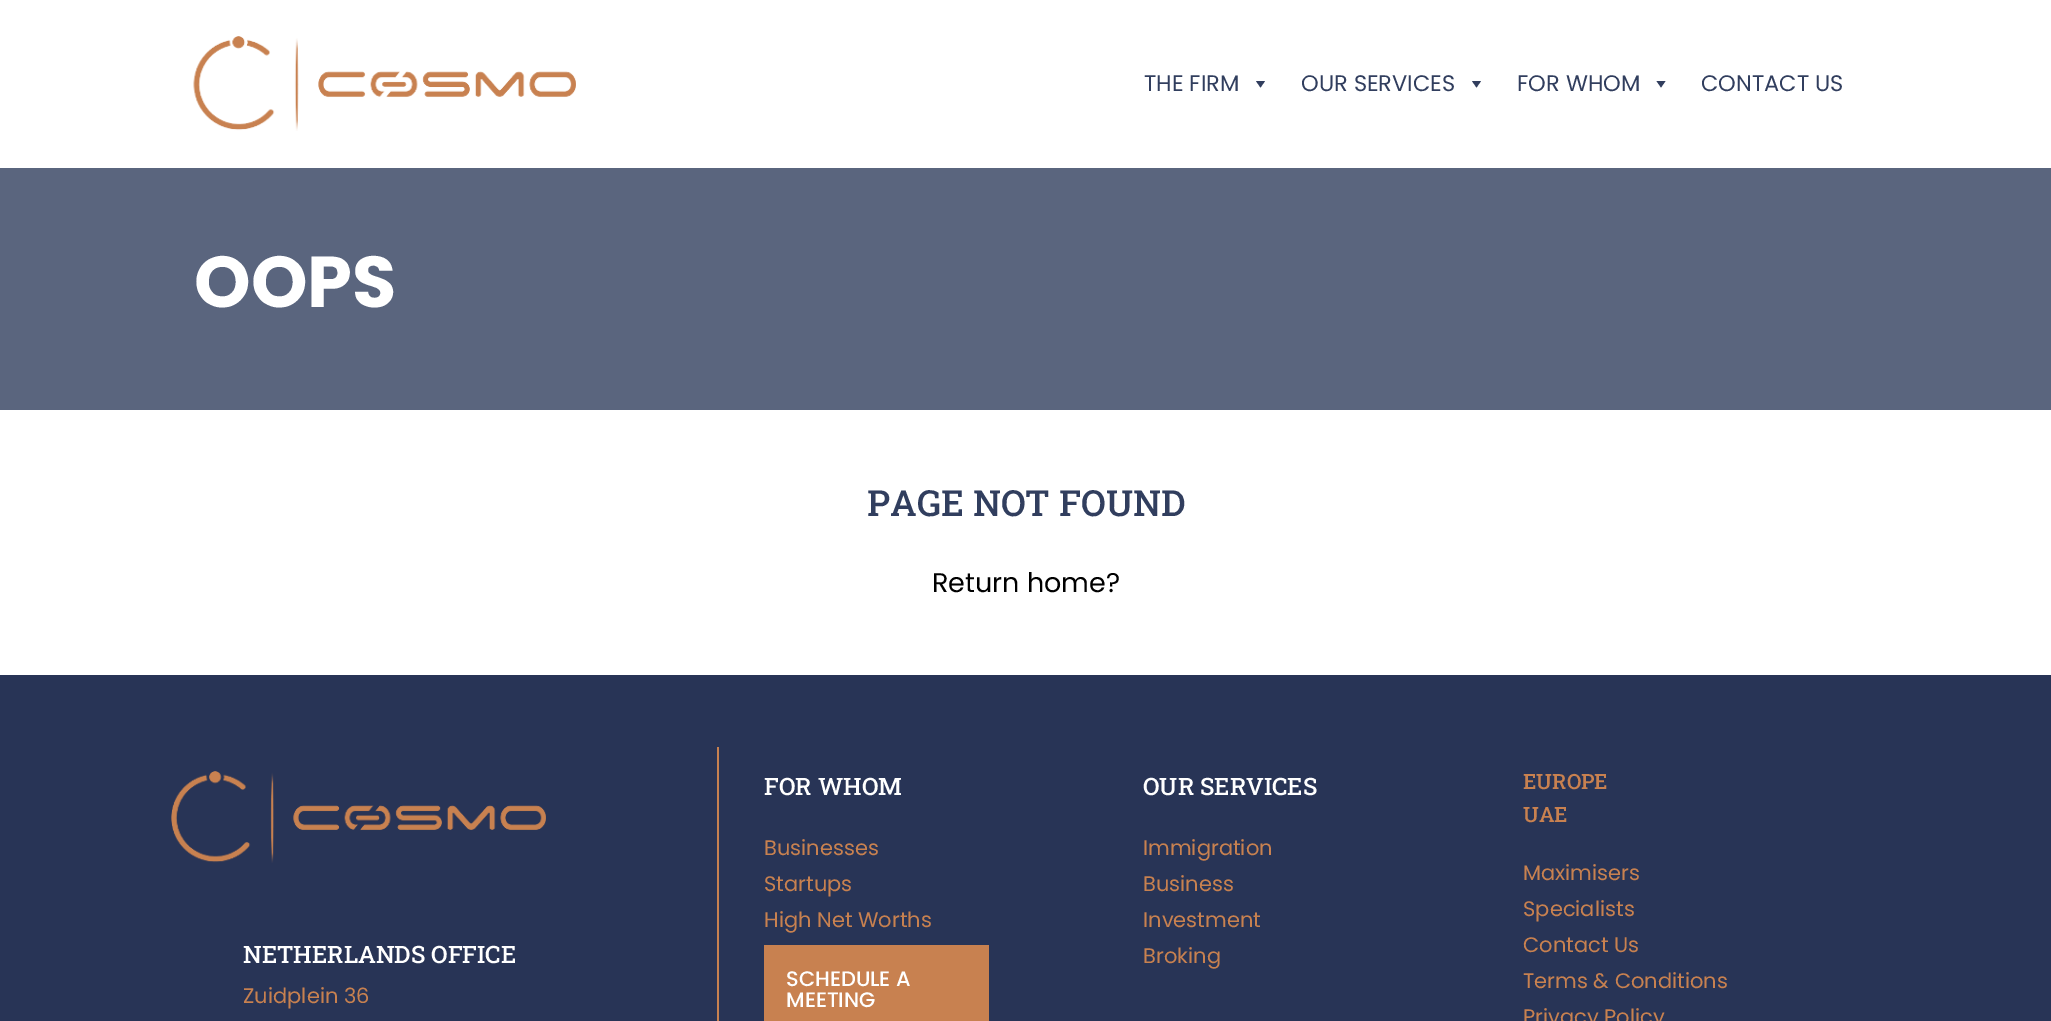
%!PS
<< /PageSize [2051 1021] >> setpagedevice
/mt/moveto load def
/li/lineto load def
/cp/closepath load def
/fl/fill load def
/co { dup -16 bitshift 255 div exch dup -8 bitshift 255 and 255 div exch 255 and 255 div setrgbcolor } def
/fn { [ exch dup neg 0 0 3 -1 roll 0 0 ] selectfont } def
/tx { co fn moveto show } def
/bx { co rectfill } def
/im { 5 dict begin { /h /w /y /x /name } { exch def } forall
  gsave x y translate w h scale
  w h 8 [w 0 0 h 0 0] name (r) file false 3 colorimage grestore end } def
0 1021 translate 1 -1 scale
4 setmiterlimit
0 0 2051 1021 16#FFFFFF bx
(media/1.raw) 193 36 383 95 im
16#313E5E co
1265 81 mt 1260.5 87.5 li 1256 81 li cp fl
1481 81 mt 1476.5 87.5 li 1472 81 li cp fl
1665.5 81 mt 1661 87.5 li 1656.5 81 li cp fl
0 168 2051 242 16#5A657E bx
0 675 2051 346 16#283456 bx
717 747 2 274 16#C88150 bx
(media/2.raw) 171 771 375 92 im
764 945 225 76 16#C88150 bx
(THE FIRM) 1144 91 /Poppins-Regular 22.5 16#313E5E tx
(OUR SERVICES) 1301 91 /Poppins-Regular 22.5 16#313E5E tx
(FOR WHOM) 1517 91 /Poppins-Regular 22.5 16#313E5E tx
(CONTACT US) 1701 91 /Poppins-Regular 22.5 16#313E5E tx
(OOPS) 194 307 /Poppins-Bold 72 16#FFFFFF tx
(PAGE NOT FOUND) 867 516 /RobotoSlab-Medium 36 16#313E5E tx
(Return home?) 932 592 /Poppins-Regular 27 16#000000 tx
(NETHERLANDS OFFICE) 243 963 /RobotoSlab-Medium 24 16#FFFFFF tx
(Zuidplein 36) 243 1003 /Poppins-Regular 21 16#C88150 tx
(FOR WHOM) 764 795 /RobotoSlab-Medium 24 16#FFFFFF tx
(Businesses) 764 855 /Poppins-Regular 21 16#C88150 tx
(Startups) 764 891 /Poppins-Regular 21 16#C88150 tx
(High Net Worths) 764 927 /Poppins-Regular 21 16#C88150 tx
(SCHEDULE A) 786 986 /Poppins-Medium 21 16#FFFFFF tx
(MEETING) 786 1007 /Poppins-Medium 21 16#FFFFFF tx
(OUR SERVICES) 1143 795 /RobotoSlab-Medium 24 16#FFFFFF tx
(Immigration) 1143 855 /Poppins-Regular 21 16#C88150 tx
(Business) 1143 891 /Poppins-Regular 21 16#C88150 tx
(Investment) 1143 927 /Poppins-Regular 21 16#C88150 tx
(Broking) 1143 963 /Poppins-Regular 21 16#C88150 tx
(EUROPE) 1523 789 /RobotoSlab-Medium 21 16#C88150 tx
(UAE) 1523 822 /RobotoSlab-Medium 21 16#C88150 tx
(Maximisers) 1523 880 /Poppins-Regular 21 16#C88150 tx
(Specialists) 1523 916 /Poppins-Regular 21 16#C88150 tx
(Contact Us) 1523 952 /Poppins-Regular 21 16#C88150 tx
(Terms & Conditions) 1523 988 /Poppins-Regular 21 16#C88150 tx
(Privacy Policy) 1523 1024 /Poppins-Regular 21 16#C88150 tx
showpage
